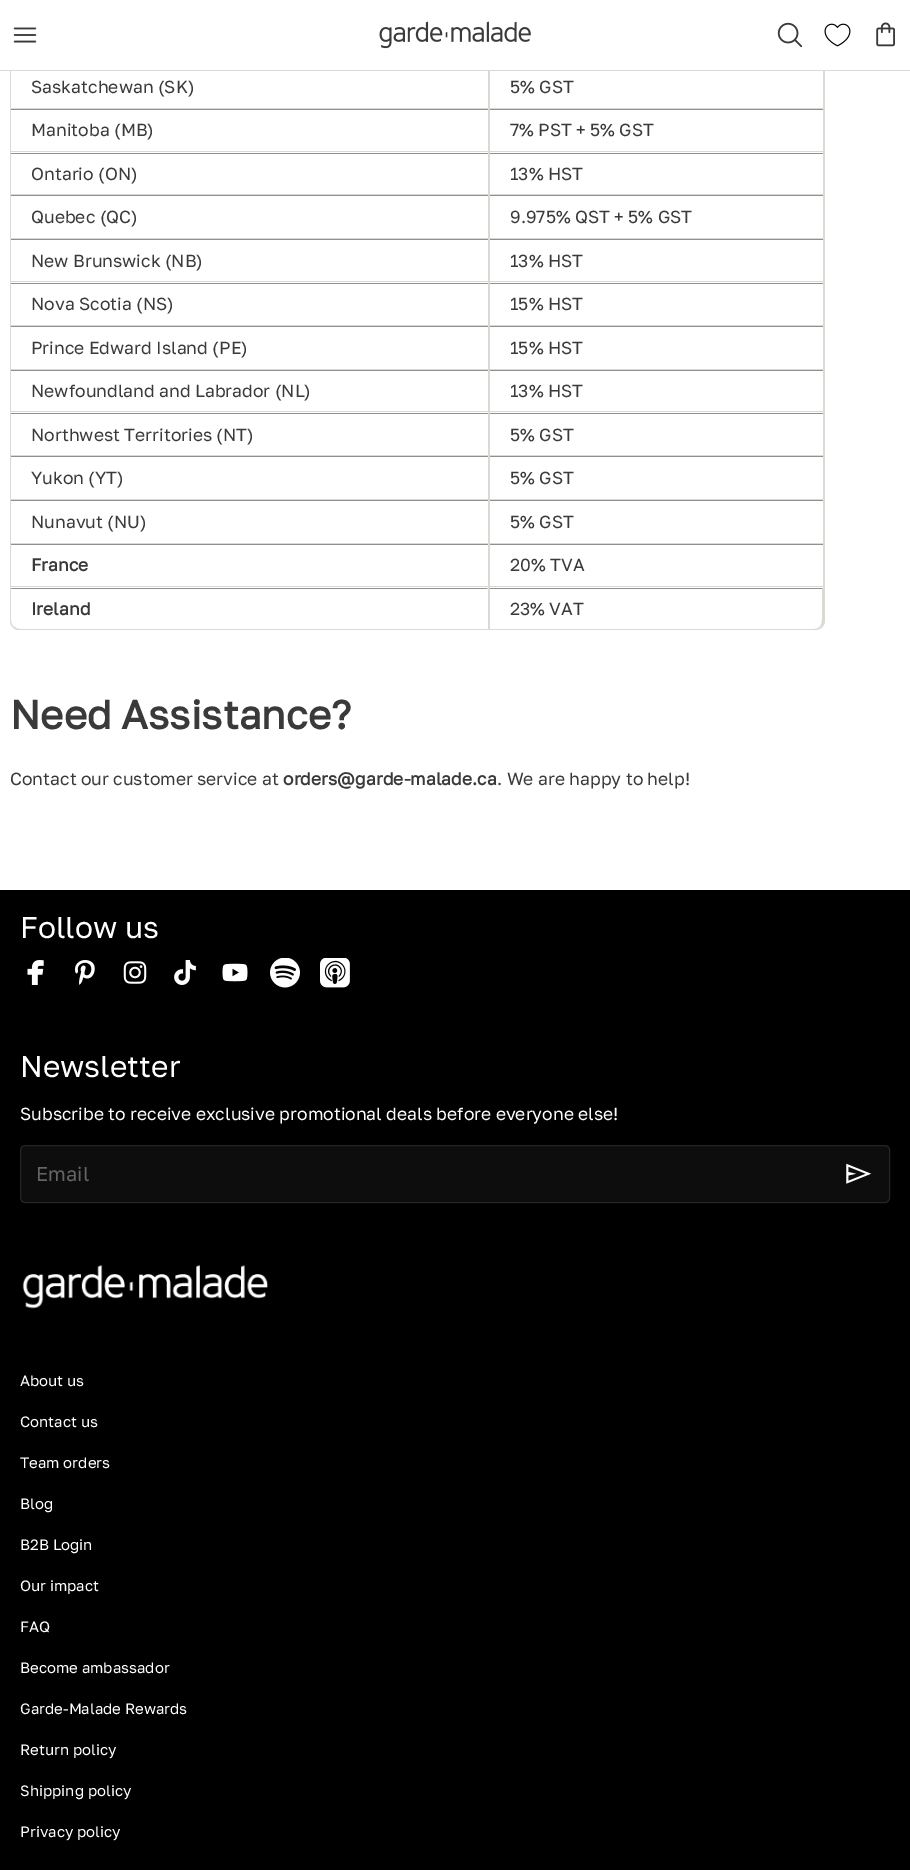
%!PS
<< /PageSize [910 1870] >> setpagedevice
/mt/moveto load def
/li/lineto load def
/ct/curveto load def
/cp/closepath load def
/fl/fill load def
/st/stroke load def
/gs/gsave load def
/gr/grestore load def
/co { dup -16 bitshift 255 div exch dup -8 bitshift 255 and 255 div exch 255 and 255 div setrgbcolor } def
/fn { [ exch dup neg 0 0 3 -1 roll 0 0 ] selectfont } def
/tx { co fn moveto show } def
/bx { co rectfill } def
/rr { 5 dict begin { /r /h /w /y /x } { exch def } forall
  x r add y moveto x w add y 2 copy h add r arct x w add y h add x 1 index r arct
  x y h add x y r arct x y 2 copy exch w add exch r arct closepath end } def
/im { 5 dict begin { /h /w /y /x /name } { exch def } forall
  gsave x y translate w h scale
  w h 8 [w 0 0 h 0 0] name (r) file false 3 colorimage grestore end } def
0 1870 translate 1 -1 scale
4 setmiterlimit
0 0 910 1870 16#FFFFFF bx
16#D8DAD3 co
20 -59 mt 815 -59 li 821 -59 825 -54 825 -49 ct 825 620 li 825 626 821 630 815 630 ct 20 630 li 14 630 10 626 10 620 ct 10 -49 li 10 -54 14 -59 20 -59 ct cp 20 -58 mt 815 -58 li 820 -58 824 -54 824 -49 ct 824 620 li 824 626 820 630 815 630 ct 20 630 li 14 630 10 626 10 620 ct 10 -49 li 10 -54 14 -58 20 -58 ct cp eofill
488 65 1 44 16#D8DAD3 bx
10 108 479 1 16#D8DAD3 bx
10 65 1 44 16#D8DAD3 bx
823 65 1 44 16#D8DAD3 bx
489 108 335 1 16#D8DAD3 bx
489 65 1 44 16#D8DAD3 bx
0 70 910 1 16#D8DAD3 bx
10 0 815 70 16#FFFFFF bx
(media/1.raw) 13 27 24 16 im
(media/2.raw) 379 21 152 28 im
(media/3.raw) 777 22 26 26 im
(media/4.raw) 824 23 27 24 im
(media/5.raw) 876 22 19 25 im
10 109 814 1 16#90918D bx
488 109 1 44 16#D8DAD3 bx
10 151 479 1 16#D8DAD3 bx
10 109 1 44 16#D8DAD3 bx
823 109 1 44 16#D8DAD3 bx
489 151 335 1 16#D8DAD3 bx
489 109 1 44 16#D8DAD3 bx
10 153 814 1 16#90918D bx
488 153 1 42 16#D8DAD3 bx
10 194 479 1 16#D8DAD3 bx
10 153 1 42 16#D8DAD3 bx
823 153 1 42 16#D8DAD3 bx
489 194 335 1 16#D8DAD3 bx
489 153 1 42 16#D8DAD3 bx
10 195 814 1 16#90918D bx
488 195 1 44 16#D8DAD3 bx
10 238 479 1 16#D8DAD3 bx
10 195 1 44 16#D8DAD3 bx
823 195 1 44 16#D8DAD3 bx
489 238 335 1 16#D8DAD3 bx
489 195 1 44 16#D8DAD3 bx
10 239 814 1 16#90918D bx
488 239 1 44 16#D8DAD3 bx
10 281 479 1 16#D8DAD3 bx
10 239 1 44 16#D8DAD3 bx
823 239 1 44 16#D8DAD3 bx
489 281 335 1 16#D8DAD3 bx
489 239 1 44 16#D8DAD3 bx
10 283 814 1 16#90918D bx
488 283 1 43 16#D8DAD3 bx
10 325 479 1 16#D8DAD3 bx
10 283 1 43 16#D8DAD3 bx
823 283 1 43 16#D8DAD3 bx
489 325 335 1 16#D8DAD3 bx
489 283 1 43 16#D8DAD3 bx
10 326 814 1 16#90918D bx
488 326 1 44 16#D8DAD3 bx
10 369 479 1 16#D8DAD3 bx
10 326 1 44 16#D8DAD3 bx
823 326 1 44 16#D8DAD3 bx
489 369 335 1 16#D8DAD3 bx
489 326 1 44 16#D8DAD3 bx
10 370 814 1 16#90918D bx
488 370 1 43 16#D8DAD3 bx
10 411 479 1 16#D8DAD3 bx
10 370 1 43 16#D8DAD3 bx
823 370 1 43 16#D8DAD3 bx
489 411 335 1 16#D8DAD3 bx
489 370 1 43 16#D8DAD3 bx
10 413 814 1 16#90918D bx
488 413 1 43 16#D8DAD3 bx
10 455 479 1 16#D8DAD3 bx
10 413 1 43 16#D8DAD3 bx
823 413 1 43 16#D8DAD3 bx
489 455 335 1 16#D8DAD3 bx
489 413 1 43 16#D8DAD3 bx
10 456 814 1 16#90918D bx
488 456 1 44 16#D8DAD3 bx
10 499 479 1 16#D8DAD3 bx
10 456 1 44 16#D8DAD3 bx
823 456 1 44 16#D8DAD3 bx
489 499 335 1 16#D8DAD3 bx
489 456 1 44 16#D8DAD3 bx
10 500 814 1 16#90918D bx
488 500 1 44 16#D8DAD3 bx
10 543 479 1 16#D8DAD3 bx
10 500 1 44 16#D8DAD3 bx
823 500 1 44 16#D8DAD3 bx
489 543 335 1 16#D8DAD3 bx
489 500 1 44 16#D8DAD3 bx
10 544 814 1 16#90918D bx
488 544 1 44 16#D8DAD3 bx
10 586 479 1 16#D8DAD3 bx
10 544 1 44 16#D8DAD3 bx
823 544 1 44 16#D8DAD3 bx
489 586 335 1 16#D8DAD3 bx
489 544 1 44 16#D8DAD3 bx
16#90918D co
488 588 mt 10 588 li 12 589 li 487 589 li cp fl
16#D8DAD3 co
489 588 mt 489 630 li 488 629 li 488 589 li 487 589 li cp fl
489 630 mt 488 629 li 20 629 li 18 629 15 628 14 626 ct 13 627 li 14 629 17 630 20 630 ct cp fl
11 589 mt 11 620 li 11 622.5 12 625 13.5 626.5 ct 13 627 li 11 625.5 10 623 10 620 ct 10 588 li 10.5 588 li 11.5 589 li cp fl
16#90918D co
823 588 mt 489 588 li 490 589 li 822 589 li cp fl
16#D8DAD3 co
824 622.5 mt 823.5 624 822.5 626 821 627 ct 820 626 li 821.5 624.5 822 622.5 822 620 ct 822 589 li 823 588 li 824 588 li cp fl
489 630 mt 814 630 li 817 630 819 629 821 627 ct 820 626 li 819 628 817 629 814 629 ct 490 629 li cp fl
489 588 mt 489 630 li 490 629 li 490 589 li cp fl
0 890 910 980 16#000000 bx
(media/6.raw) 27 960 17 25 im
(media/7.raw) 75 960 20 25 im
(media/8.raw) 123 961 24 23 im
(media/9.raw) 174 960 22 25 im
(media/10.raw) 222 963 26 19 im
(media/11.raw) 270 958 30 30 im
(media/12.raw) 320 958 30 30 im
16#0D0D0D co
20.5 1145.5 869 57 4.5 rr gs fl gr
16#252525 co
st
(media/13.raw) 846 1163 26 21 im
(media/14.raw) 22 1264 246 45 im
(Saskatchewan \(SK\)) 31 93 /GolosText-Regular 17.5 16#3A3A3A tx
(5% GST) 510 93 /GolosText-Regular 17.5 16#3A3A3A tx
(Manitoba \(MB\)) 31 136 /GolosText-Regular 17.5 16#3A3A3A tx
(7% PST + 5% GST) 510 136 /GolosText-Regular 17.5 16#3A3A3A tx
(Ontario \(ON\)) 31 180 /GolosText-Regular 17.5 16#3A3A3A tx
(13% HST) 510 180 /GolosText-Regular 17.5 16#3A3A3A tx
(Quebec \(QC\)) 31 223 /GolosText-Regular 17.5 16#3A3A3A tx
(9.975% QST + 5% GST) 510 223 /GolosText-Regular 17.5 16#3A3A3A tx
(New Brunswick \(NB\)) 31 267 /GolosText-Regular 17.5 16#3A3A3A tx
(13% HST) 510 267 /GolosText-Regular 17.5 16#3A3A3A tx
(Nova Scotia \(NS\)) 31 310 /GolosText-Regular 17.5 16#3A3A3A tx
(15% HST) 510 310 /GolosText-Regular 17.5 16#3A3A3A tx
(Prince Edward Island \(PE\)) 31 354 /GolosText-Regular 17.5 16#3A3A3A tx
(15% HST) 510 354 /GolosText-Regular 17.5 16#3A3A3A tx
(Newfoundland and Labrador \(NL\)) 31 397 /GolosText-Regular 17.5 16#3A3A3A tx
(13% HST) 510 397 /GolosText-Regular 17.5 16#3A3A3A tx
(Northwest Territories \(NT\)) 31 441 /GolosText-Regular 17.5 16#3A3A3A tx
(5% GST) 510 441 /GolosText-Regular 17.5 16#3A3A3A tx
(Yukon \(YT\)) 31 484 /GolosText-Regular 17.5 16#3A3A3A tx
(5% GST) 510 484 /GolosText-Regular 17.5 16#3A3A3A tx
(Nunavut \(NU\)) 31 528 /GolosText-Regular 17.5 16#3A3A3A tx
(5% GST) 510 528 /GolosText-Regular 17.5 16#3A3A3A tx
(France) 31 571 /GolosText-Bold 17.5 16#3A3A3A tx
(20% TVA) 510 571 /GolosText-Regular 17.5 16#3A3A3A tx
(Ireland) 31 615 /GolosText-Bold 17.5 16#3A3A3A tx
(23% VAT) 510 615 /GolosText-Regular 17.5 16#3A3A3A tx
(Need Assistance?) 10 729 /GolosText-Bold 40 16#3A3A3A tx
(Contact our customer service at) 10 785 /GolosText-Regular 17.5 16#3A3A3A tx
(orders@garde-malade.ca) 283 785 /GolosText-Bold 17.5 16#3A3A3A tx
(. We are happy to help!) 497 785 /GolosText-Regular 17.5 16#3A3A3A tx
(Follow us) 20 938 /GolosText-Regular 30 16#FFFFFF tx
(Newsletter) 20 1077 /GolosText-Regular 30 16#FFFFFF tx
(Subscribe to receive exclusive promotional deals before everyone else!) 20 1120 /GolosText-Regular 17.5 16#FFFFFF tx
(Email) 36 1181 /GolosText-Regular 20 16#646464 tx
(About us) 20 1386 /GolosText-Regular 15 16#FFFFFF tx
(Contact us) 20 1427 /GolosText-Regular 15 16#FFFFFF tx
(Team orders) 20 1468 /GolosText-Regular 15 16#FFFFFF tx
(Blog) 20 1509 /GolosText-Regular 15 16#FFFFFF tx
(B2B Login) 20 1550 /GolosText-Regular 15 16#FFFFFF tx
(Our impact) 20 1591 /GolosText-Regular 15 16#FFFFFF tx
(FAQ) 20 1632 /GolosText-Regular 15 16#FFFFFF tx
(Become ambassador) 20 1673 /GolosText-Regular 15 16#FFFFFF tx
(Garde-Malade Rewards) 20 1714 /GolosText-Regular 15 16#FFFFFF tx
(Return policy) 20 1755 /GolosText-Regular 15 16#FFFFFF tx
(Shipping policy) 20 1796 /GolosText-Regular 15 16#FFFFFF tx
(Privacy policy) 20 1837 /GolosText-Regular 15 16#FFFFFF tx
showpage
